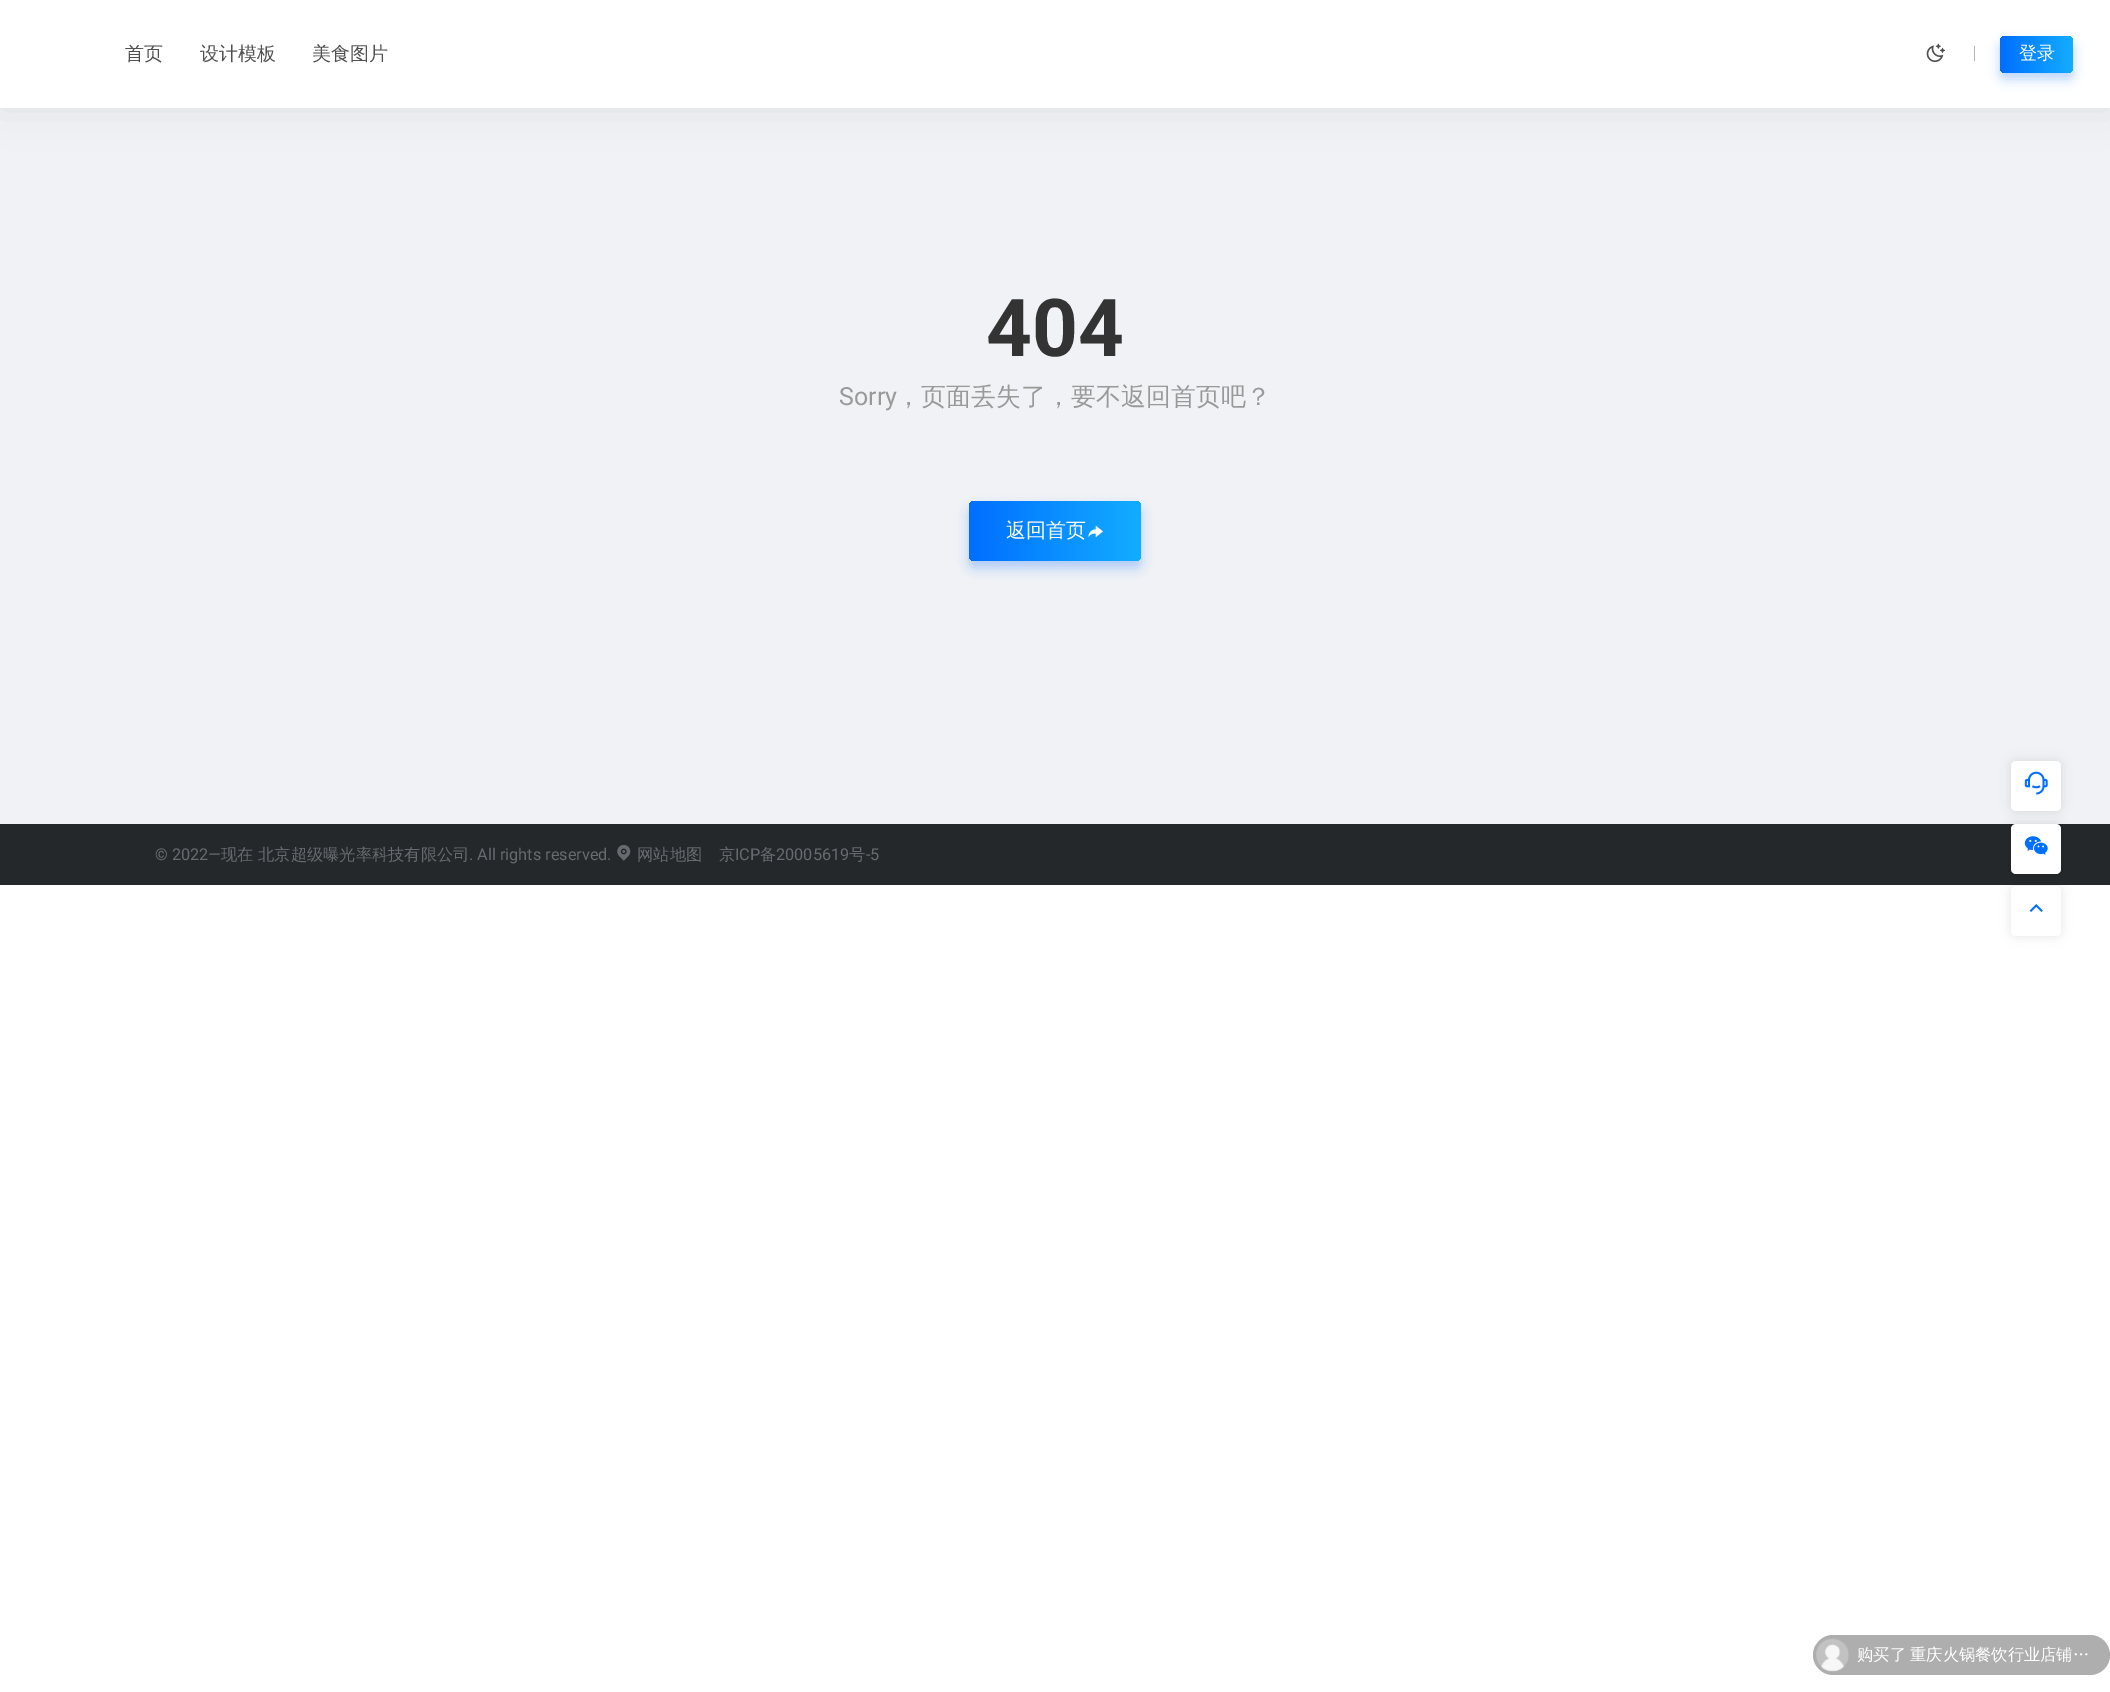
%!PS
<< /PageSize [2110 1692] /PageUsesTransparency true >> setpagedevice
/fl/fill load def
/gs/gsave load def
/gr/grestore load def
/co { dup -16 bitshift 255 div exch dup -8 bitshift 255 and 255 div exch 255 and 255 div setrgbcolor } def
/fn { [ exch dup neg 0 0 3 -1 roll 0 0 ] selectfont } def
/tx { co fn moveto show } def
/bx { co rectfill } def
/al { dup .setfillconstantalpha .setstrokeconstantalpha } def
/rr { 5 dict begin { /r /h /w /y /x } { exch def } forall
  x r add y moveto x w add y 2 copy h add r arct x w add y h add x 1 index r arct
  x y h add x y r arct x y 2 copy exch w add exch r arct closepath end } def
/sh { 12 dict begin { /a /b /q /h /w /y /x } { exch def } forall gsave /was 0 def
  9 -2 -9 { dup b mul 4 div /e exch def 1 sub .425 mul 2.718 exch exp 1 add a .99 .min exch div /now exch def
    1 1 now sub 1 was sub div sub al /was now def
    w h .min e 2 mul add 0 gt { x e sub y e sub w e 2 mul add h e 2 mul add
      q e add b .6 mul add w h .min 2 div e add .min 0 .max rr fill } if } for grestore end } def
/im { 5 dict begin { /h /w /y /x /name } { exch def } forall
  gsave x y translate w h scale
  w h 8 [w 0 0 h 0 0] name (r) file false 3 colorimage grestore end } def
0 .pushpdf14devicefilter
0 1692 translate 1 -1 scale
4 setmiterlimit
0 0 2110 1692 16#FFFFFF bx
0 108 2110 716 16#F0F2F5 bx
16#000000 co
0 0 2110 108 0 19 .07 sh
0 0 2110 108 16#FFFFFF bx
(media/1.raw) 1926 43 19 20 im
1974 46 1 15 16#B3B3B3 bx
16#106EFD co
2000 43 73 36 5 6 .3 sh
gs 2000 36 73 37 5 rr clip newpath
<< /ShadingType 2 /ColorSpace /DeviceRGB /Coords [2000 54 2073 54] /Extend [true true] /Function << /FunctionType 2 /Domain [0 1] /C0 [0 .431 1] /C1 [.075 .678 1] /N 1 >> >> shfill gr
969 508 172 60 5 6 .3 sh
gs 969 501 172 60 5 rr clip newpath
<< /ShadingType 2 /ColorSpace /DeviceRGB /Coords [969 531 1141 531] /Extend [true true] /Function << /FunctionType 2 /Domain [0 1] /C0 [0 .431 1] /C1 [.075 .678 1] /N 1 >> >> shfill gr
(media/2.raw) 1088 525 15 13 im
0 824 2110 61 16#25282A bx
(media/3.raw) 617 844 14 17 im
16#000000 co
2011 761 50 50 5 5.5 .1 sh
16#FFFFFF co
2011 761 50 50 5 rr fl
(media/4.raw) 2024 771 24 24 im
16#000000 co
2011 824 50 50 5 5.5 .1 sh
16#FFFFFF co
2011 824 50 50 5 rr fl
(media/5.raw) 2024 836 24 19 im
16#000000 co
2011 886 50 50 5 5.5 .1 sh
16#FFFFFF co
2011 886 50 50 5 rr fl
(media/6.raw) 2029 904 14 8 im
16#AEAEAE co
1813 1635 297 40 20 rr fl
(media/7.raw) 1816 1638 33 34 im
(首页) 125 60 /WenQuanYiZenHei-Medium 19 16#505050 tx
(设计模板) 200 60 /WenQuanYiZenHei-Medium 19 16#505050 tx
(美食图片) 312 60 /WenQuanYiZenHei-Medium 19 16#505050 tx
(登录) 2019 59 /WenQuanYiZenHei-Medium 18 16#FFFFFF tx
(404) 986 356 /Roboto-Bold 80 16#333333 tx
(Sorry) 839 405 /Roboto-Regular 25 16#999999 tx
(，页面丢失了，要不返回首页吧？) 896 405 /WenQuanYiZenHei-Medium 25 16#999999 tx
(返回首页) 1006 537 /WenQuanYiZenHei-Medium 20 16#FFFFFF tx
(© 2022—) 155 860 /Roboto-Regular 16.25 16#676B6F tx
(现在) 221 860 /WenQuanYiZenHei-Medium 16.25 16#676B6F tx
(北京超级曝光率科技有限公司) 258 860 /WenQuanYiZenHei-Medium 16.25 16#676B6F tx
(. All rights reserved.) 469 860 /Roboto-Regular 16.25 16#676B6F tx
(网站地图) 637 860 /WenQuanYiZenHei-Medium 16.25 16#676B6F tx
(京) 719 860 /WenQuanYiZenHei-Medium 16.25 16#676B6F tx
(ICP) 735 860 /Roboto-Regular 16.25 16#676B6F tx
(备) 760 860 /WenQuanYiZenHei-Medium 16.25 16#676B6F tx
(20005619) 776 860 /Roboto-Regular 16.25 16#676B6F tx
(号) 849 860 /WenQuanYiZenHei-Medium 16.25 16#676B6F tx
(-5) 866 860 /Roboto-Regular 16.25 16#676B6F tx
(购买了) 1857 1660 /WenQuanYiZenHei-Medium 16.25 16#FFFFFF tx
(重庆火锅餐饮行业店铺…) 1910 1660 /WenQuanYiZenHei-Medium 16.25 16#FFFFFF tx
.poppdf14devicefilter showpage
